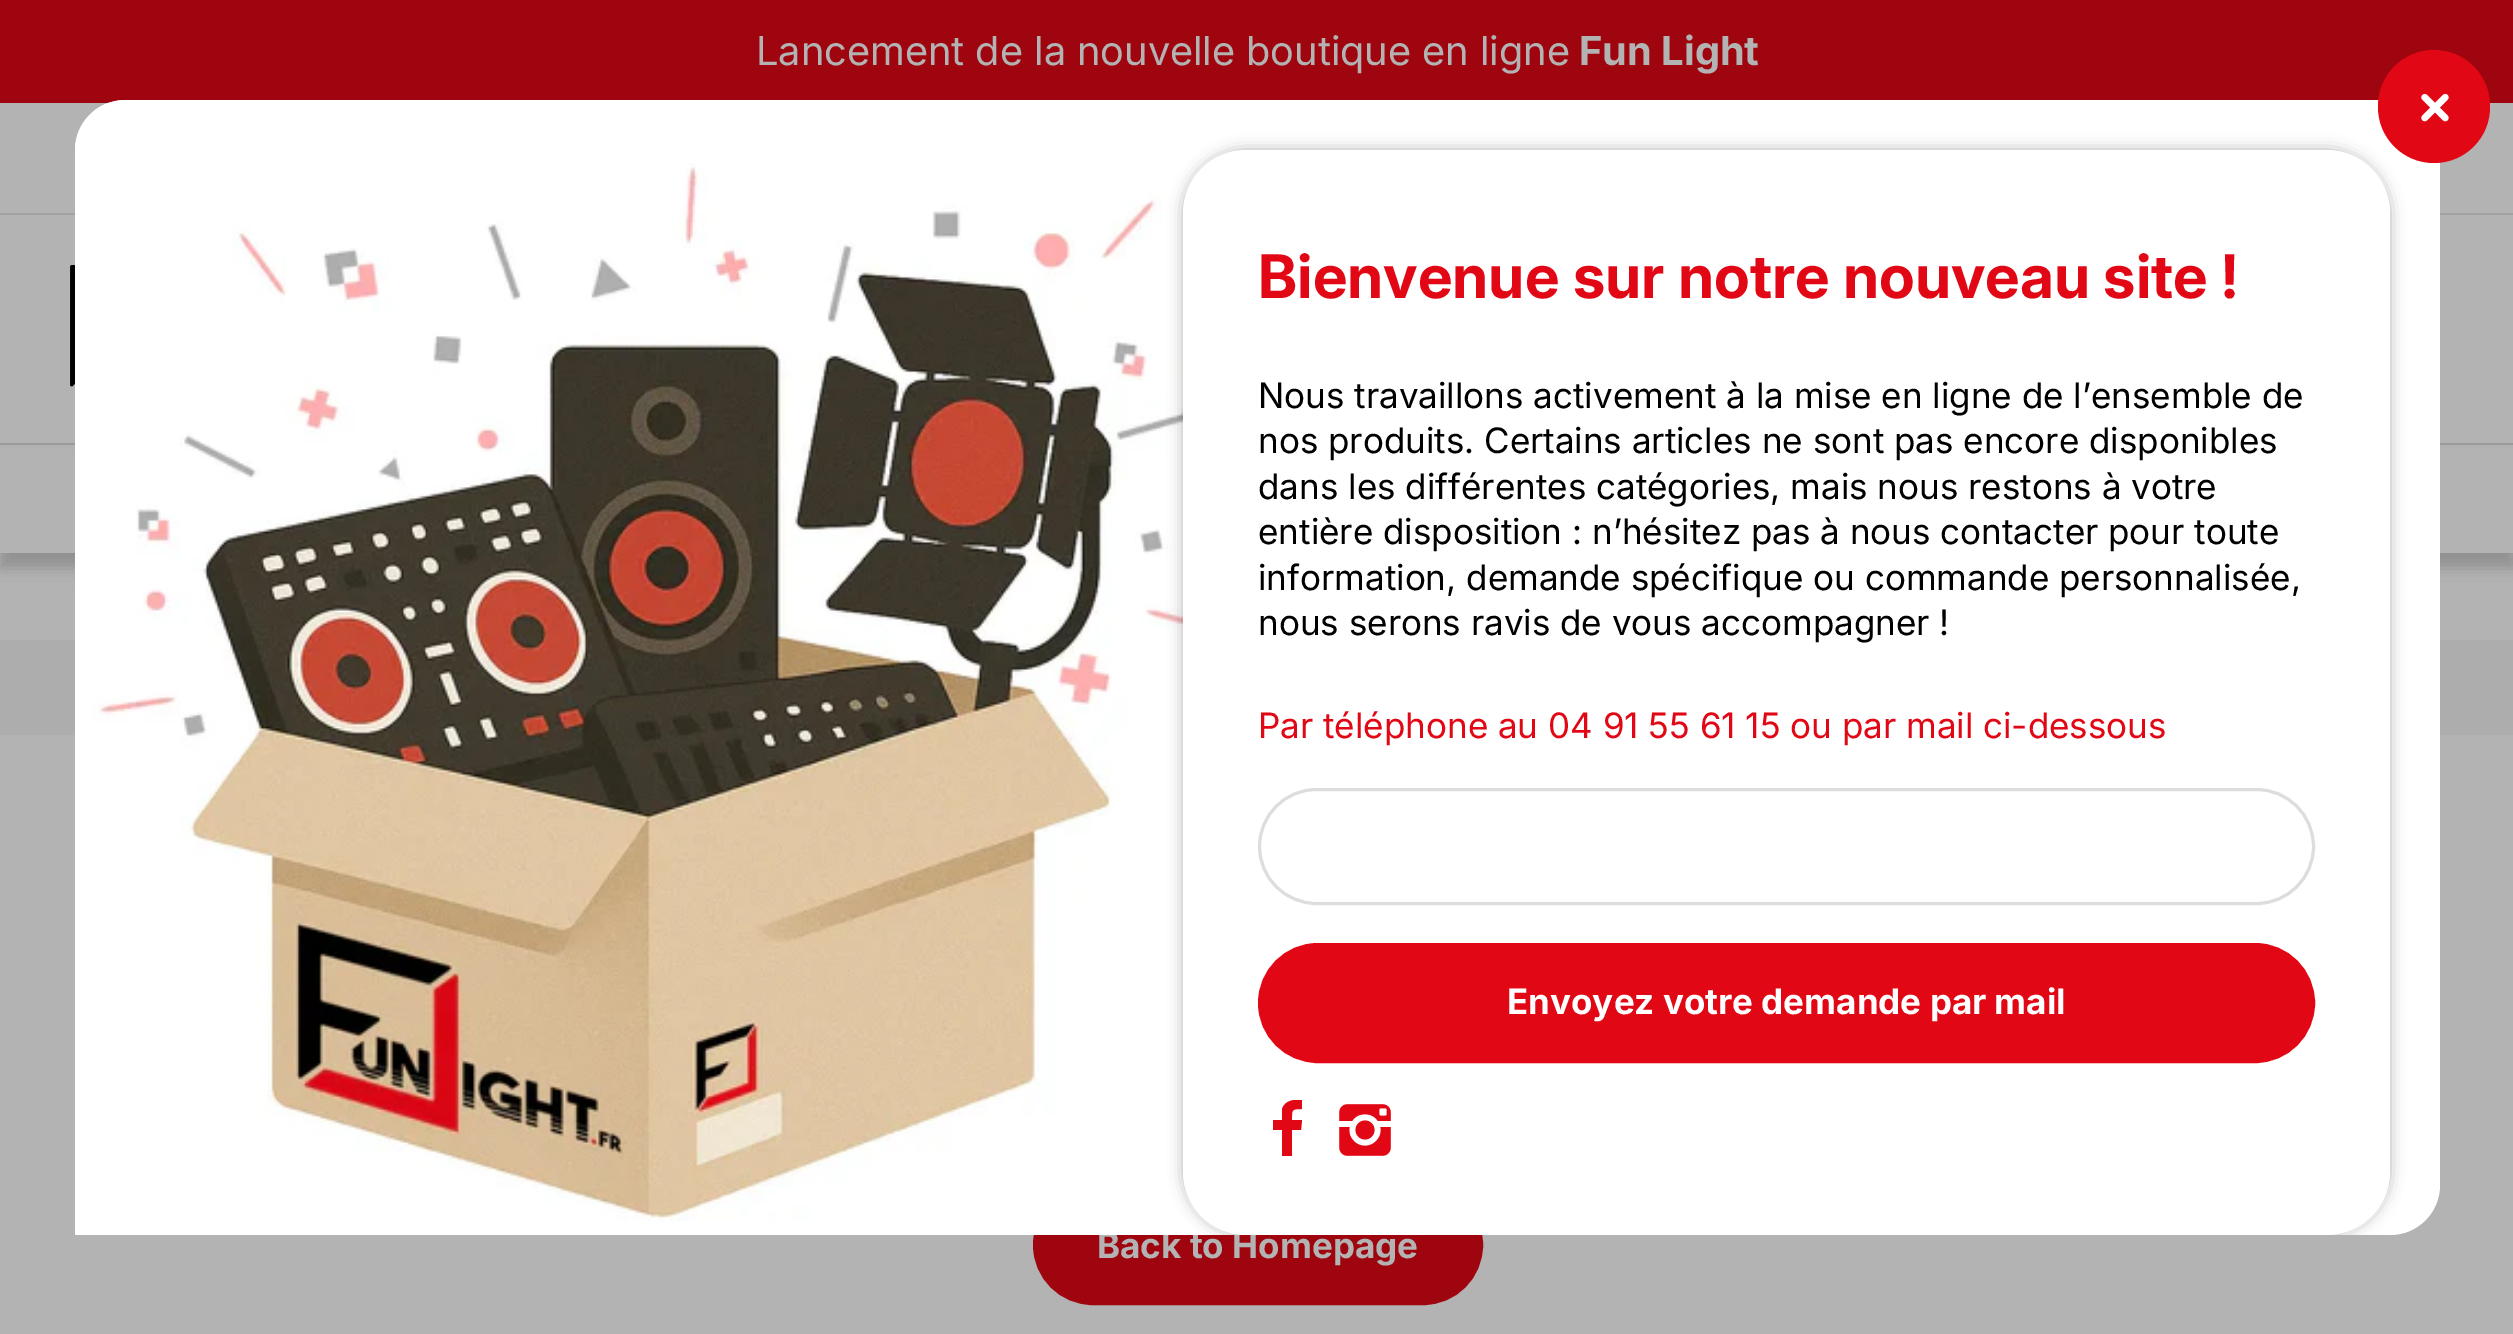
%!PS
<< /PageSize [2513 1334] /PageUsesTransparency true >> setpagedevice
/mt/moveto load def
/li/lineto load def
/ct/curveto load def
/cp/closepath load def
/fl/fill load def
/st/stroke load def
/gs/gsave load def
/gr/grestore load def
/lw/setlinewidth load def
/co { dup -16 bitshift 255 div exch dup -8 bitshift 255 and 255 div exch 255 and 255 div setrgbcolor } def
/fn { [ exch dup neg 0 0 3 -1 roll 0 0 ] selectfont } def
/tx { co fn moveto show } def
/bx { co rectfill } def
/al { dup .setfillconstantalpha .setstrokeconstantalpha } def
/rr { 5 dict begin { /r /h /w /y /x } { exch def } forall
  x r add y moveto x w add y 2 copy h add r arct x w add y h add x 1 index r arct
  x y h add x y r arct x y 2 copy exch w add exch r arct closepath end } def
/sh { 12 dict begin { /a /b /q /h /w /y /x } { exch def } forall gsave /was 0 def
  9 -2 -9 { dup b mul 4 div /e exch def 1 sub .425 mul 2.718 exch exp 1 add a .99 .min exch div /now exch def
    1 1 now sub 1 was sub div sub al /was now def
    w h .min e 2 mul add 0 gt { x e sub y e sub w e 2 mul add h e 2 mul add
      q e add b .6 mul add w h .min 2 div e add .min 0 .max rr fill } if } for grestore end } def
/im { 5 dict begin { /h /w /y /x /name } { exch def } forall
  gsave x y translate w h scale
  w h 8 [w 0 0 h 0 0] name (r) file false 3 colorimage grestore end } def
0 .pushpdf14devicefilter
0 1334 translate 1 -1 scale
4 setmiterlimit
0 0 2513 1334 16#B3B3B3 bx
0 0 2513 103 16#9E050E bx
0 213 2513 2 16#A1A1A1 bx
0 443 2513 2 16#9B9B9B bx
(media/1.raw) 70 265 5 122 im
16#000000 co
0 460 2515 108 0 7.5 .2 sh
0 449 2513 104 16#B3B3B3 bx
0 640 2513 95 16#ADADAD bx
16#9E050E co
1034.5 1186.5 447 117 58.5 rr gs fl gr
3 lw
st
(Lancement de la nouvelle boutique en ligne) 756 65 /Inter-Regular 40 16#B3B3B3 tx
(Fun Light) 1579 65 /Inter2-Bold 40 16#B3B3B3 tx
(Back to Homepage) 1097 1258 /Inter-Bold 35 16#B3B3B3 tx
16#FFFFFF co
75 100 2365 1135 50 rr fl
16#E20714 co
2378 50 112 113 56 rr fl
(media/2.raw) 2421 93 28 29 im
(media/3.raw) 75 100 1147 1135 im
gs
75 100 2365 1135 rectclip
16#010101 co
1183 150 1207 1085 63 7.5 .3 sh
gr
16#FFFFFF co
1183 150 1207 1085 63 rr fl
(Bienvenue sur notre nouveau site !) 1258 298 /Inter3-Bold 60 16#E20714 tx
(Nous travaillons activement à la mise en ligne de l’ensemble de) 1258 408 /Inter2-Regular 35 16#000000 tx
(nos produits. Certains articles ne sont pas encore disponibles) 1258 453 /Inter2-Regular 35 16#000000 tx
(dans les différentes catégories, mais nous restons à votre) 1258 499 /Inter2-Regular 35 16#000000 tx
(entière disposition : n’hésitez pas à nous contacter pour toute) 1258 544 /Inter2-Regular 35 16#000000 tx
(information, demande spécifique ou commande personnalisée,) 1258 590 /Inter2-Regular 35 16#000000 tx
(nous serons ravis de vous accompagner !) 1258 635 /Inter2-Regular 35 16#000000 tx
(Par téléphone au 04 91 55 61 15 ou par mail ci-dessous) 1258 738 /Inter2-Regular 35 16#E20714 tx
16#DDDDDD co
1259.5 789.5 1054 114 57 rr st
16#E20714 co
1259.5 944.5 1054 117 58.5 rr gs fl gr
st
(Envoyez votre demande par mail) 1507 1014 /Inter-Bold 35 16#FFFFFF tx
gs
1258 1100 60 60 rectclip
16#E20714 co
1302 1100 mt 1302 1109 li 1291 1109 1292 1110 1292 1120 ct 1302 1120 li 1301 1130 li 1292 1130 li 1292 1156 li 1282 1156 li 1282 1130 li 1273 1130 li 1273 1120 li 1282 1120 li 1282 1109 li 1285 1100 1295 1099 1302 1100 ct cp fl
gr
(media/4.raw) 1339 1104 52 52 im
.poppdf14devicefilter showpage
